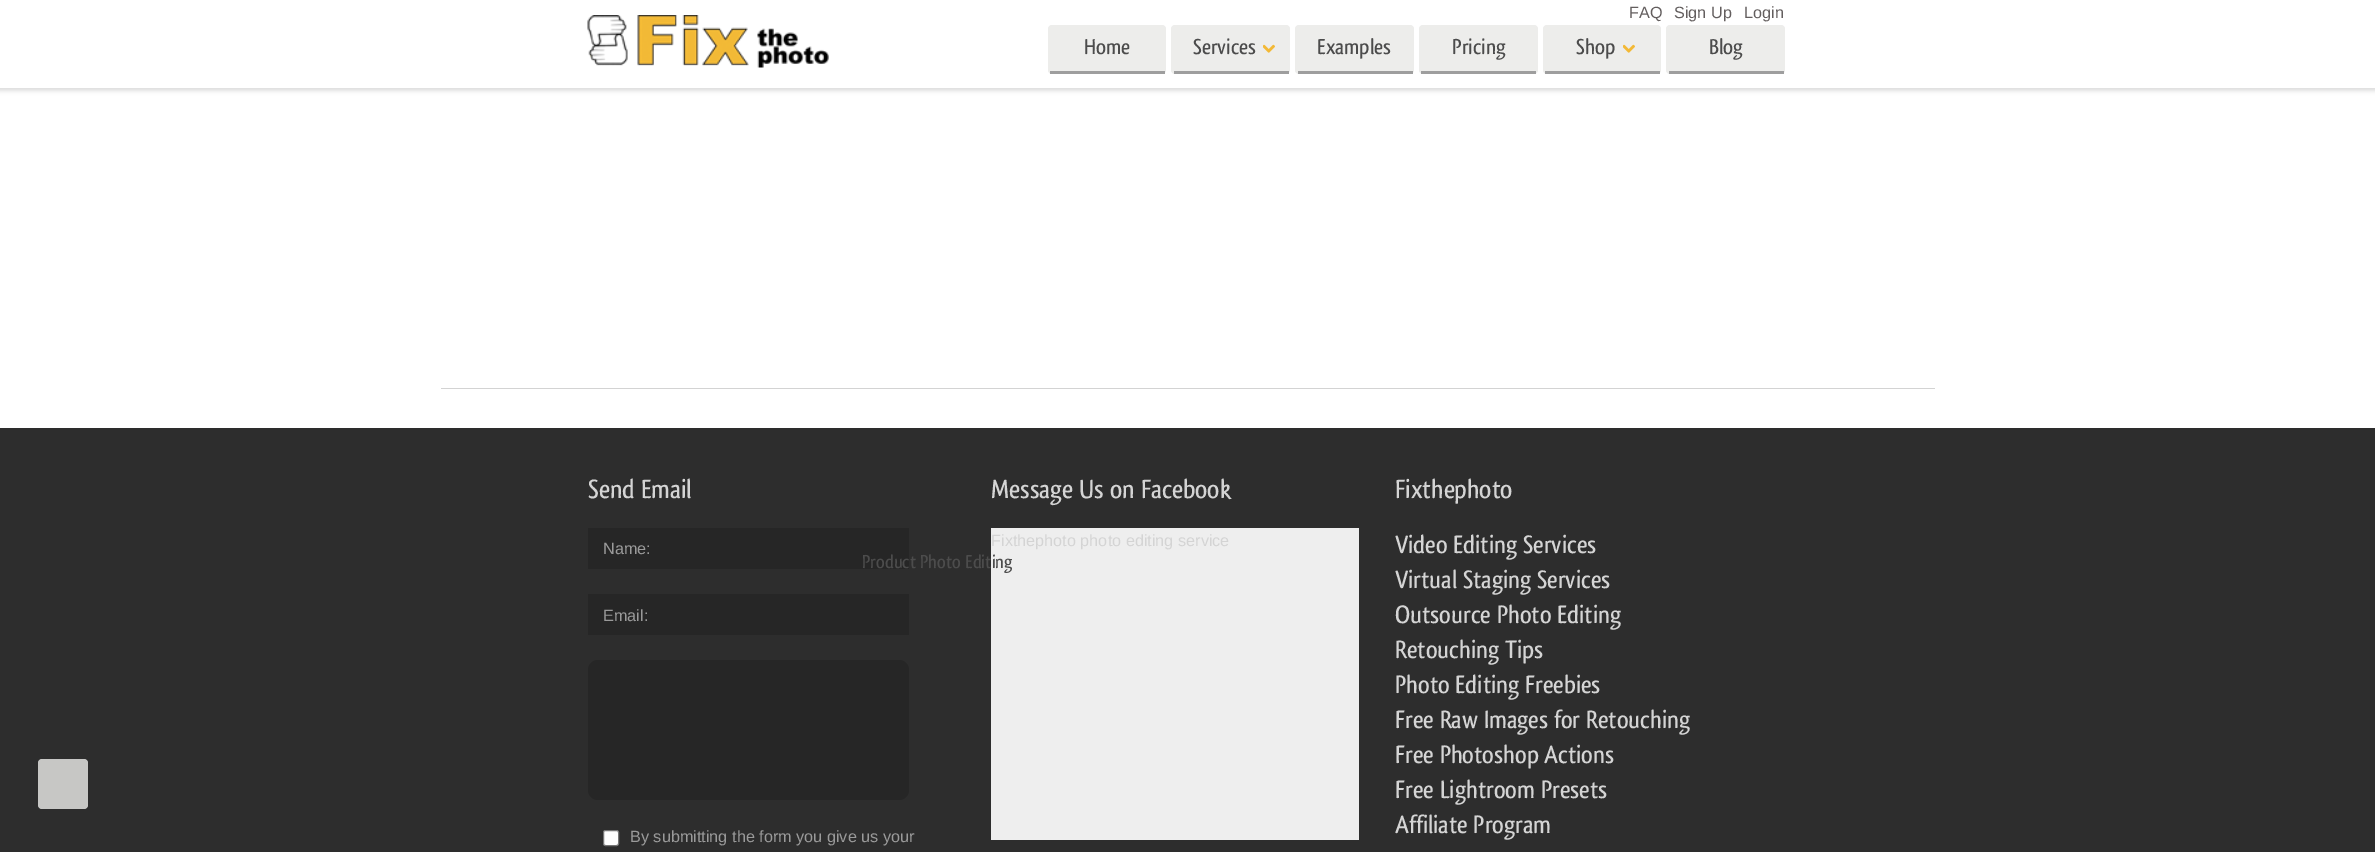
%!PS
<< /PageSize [2375 852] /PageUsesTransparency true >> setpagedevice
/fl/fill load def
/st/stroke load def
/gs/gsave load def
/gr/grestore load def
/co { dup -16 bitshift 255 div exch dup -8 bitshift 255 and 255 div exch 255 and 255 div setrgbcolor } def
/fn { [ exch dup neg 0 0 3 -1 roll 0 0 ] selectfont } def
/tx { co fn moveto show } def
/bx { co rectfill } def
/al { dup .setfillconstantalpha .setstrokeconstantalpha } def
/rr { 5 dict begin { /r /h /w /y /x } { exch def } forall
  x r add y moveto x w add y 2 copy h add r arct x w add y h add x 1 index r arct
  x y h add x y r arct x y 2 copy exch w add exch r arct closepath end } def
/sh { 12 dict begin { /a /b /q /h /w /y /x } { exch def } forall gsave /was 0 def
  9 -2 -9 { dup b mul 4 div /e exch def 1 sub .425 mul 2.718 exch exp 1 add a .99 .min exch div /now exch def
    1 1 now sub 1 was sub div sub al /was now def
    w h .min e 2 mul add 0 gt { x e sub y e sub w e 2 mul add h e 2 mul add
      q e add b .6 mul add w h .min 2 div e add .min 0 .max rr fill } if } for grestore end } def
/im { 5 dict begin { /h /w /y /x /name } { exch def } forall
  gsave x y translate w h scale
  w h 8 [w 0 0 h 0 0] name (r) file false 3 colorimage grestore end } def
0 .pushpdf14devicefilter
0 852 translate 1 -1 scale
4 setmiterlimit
0 0 2375 852 16#FFFFFF bx
16#000000 co
-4 -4 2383 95 0 2 .12 sh
0 0 2375 88 16#FFFFFF bx
(media/1.raw) 587 15 242 53 im
16#EDEDEB co
1171 25 119 49 4 rr fl
1174 71 115 3 16#9E9E9E bx
(media/2.raw) 1263 44 12 9 im
16#EDEDEB co
1295 25 119 49 4 rr fl
1298 71 115 3 16#9E9E9E bx
16#EDEDEB co
1419 25 119 49 4 rr fl
1421 71 115 3 16#9E9E9E bx
16#EDEDEB co
1543 25 118 49 4 rr fl
1545 71 115 3 16#9E9E9E bx
(media/2.raw) 1623 44 12 9 im
16#EDEDEB co
1666 25 119 49 4 rr fl
1669 71 115 3 16#9E9E9E bx
16#EDEDEB co
1048 25 118 49 4 rr fl
1050 71 115 3 16#9E9E9E bx
441 388 1494 1 16#D3D3D3 bx
0 428 2375 424 16#2D2D2D bx
16#C7C7C5 co
38 759 50 50 4 rr fl
588 528 321 41 16#262626 bx
588 594 321 41 16#262626 bx
588 660 321 140 10 rr fl
16#FFFFFF co
603.5 830.5 15 15 2 rr gs fl gr
16#767676 co
st
991 528 368 312 16#EEEEEE bx
(FAQ) 1629 18 /LiberationSans-Regular 16.25 16#635E5E tx
(Sign Up) 1674 18 /LiberationSans-Regular 16.25 16#635E5E tx
(Login) 1744 18 /LiberationSans-Regular 16.25 16#635E5E tx
(Services) 1193 54 /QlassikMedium-Medium 22.5 16#4C4C4C tx
(Product Photo Editing) 862 568 /QlassikMedium-Medium 19.5 16#4C4C4C tx
(Examples) 1317 54 /QlassikMedium-Medium 22.5 16#4C4C4C tx
(Pricing) 1452 54 /QlassikMedium-Medium 22.5 16#4C4C4C tx
(Shop) 1576 54 /QlassikMedium-Medium 22.5 16#4C4C4C tx
(Blog) 1709 54 /QlassikMedium-Medium 22.5 16#4C4C4C tx
(Home) 1084 54 /QlassikMedium-Medium 22.5 16#4C4C4C tx
(Send Email) 588 498 /QlassikMedium-Medium 27.5 16#D4D4D4 tx
(Name:) 603 554 /LiberationSans-Regular 16.25 16#9A9A9A tx
(Email:) 603 621 /LiberationSans-Regular 16.25 16#9A9A9A tx
(By submitting the form you give us your) 630 842 /LiberationSans-Regular 16.25 16#9A9A9A tx
(Message Us on Facebook) 991 498 /QlassikMedium-Medium 27.5 16#D4D4D4 tx
(Fixthephoto photo editing service) 991 546 /LiberationSans-Regular 16.25 16#D4D4D4 tx
(Fixthephoto) 1395 498 /QlassikMedium-Medium 27.5 16#D4D4D4 tx
(Video Editing Services) 1395 553 /QlassikMedium-Medium 26.25 16#D4D4D4 tx
(Virtual Staging Services) 1395 588 /QlassikMedium-Medium 26.25 16#D4D4D4 tx
(Outsource Photo Editing) 1395 623 /QlassikMedium-Medium 26.25 16#D4D4D4 tx
(Retouching Tips) 1395 658 /QlassikMedium-Medium 26.25 16#D4D4D4 tx
(Photo Editing Freebies) 1395 693 /QlassikMedium-Medium 26.25 16#D4D4D4 tx
(Free Raw Images for Retouching) 1395 728 /QlassikMedium-Medium 26.25 16#D4D4D4 tx
(Free Photoshop Actions) 1395 763 /QlassikMedium-Medium 26.25 16#D4D4D4 tx
(Free Lightroom Presets) 1395 798 /QlassikMedium-Medium 26.25 16#D4D4D4 tx
(Affiliate Program) 1395 833 /QlassikMedium-Medium 26.25 16#D4D4D4 tx
.poppdf14devicefilter showpage
